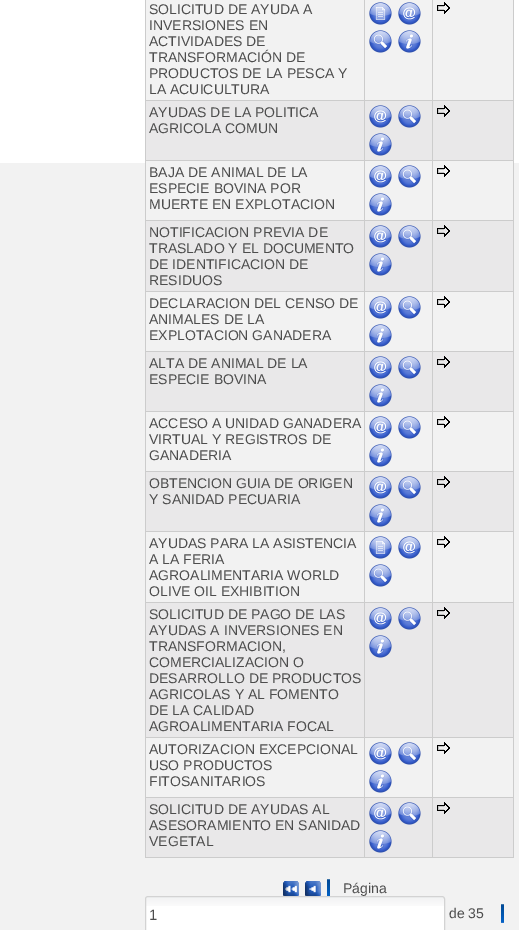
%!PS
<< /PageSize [519 930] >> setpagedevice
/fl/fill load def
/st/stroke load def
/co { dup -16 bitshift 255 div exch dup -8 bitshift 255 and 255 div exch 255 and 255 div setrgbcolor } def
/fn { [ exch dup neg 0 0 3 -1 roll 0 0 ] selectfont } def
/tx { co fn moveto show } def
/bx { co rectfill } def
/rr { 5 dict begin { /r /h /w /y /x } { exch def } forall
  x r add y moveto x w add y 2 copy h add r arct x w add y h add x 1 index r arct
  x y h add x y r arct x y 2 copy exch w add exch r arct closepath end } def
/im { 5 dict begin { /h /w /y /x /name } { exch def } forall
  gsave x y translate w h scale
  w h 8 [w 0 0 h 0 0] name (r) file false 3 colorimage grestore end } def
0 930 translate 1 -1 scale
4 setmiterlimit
0 0 519 930 16#F2F2F2 bx
0 0 519 163 16#FFFFFF bx
146 0 367 100 16#F2F2F2 bx
432 100 82 1 16#CCCCCC bx
146 101 367 59 16#E9E8E9 bx
432 160 82 1 16#CCCCCC bx
146 161 367 2 16#F2F2F2 bx
432 220 82 1 16#CCCCCC bx
146 221 367 70 16#E9E8E9 bx
432 291 82 1 16#CCCCCC bx
432 351 82 1 16#CCCCCC bx
146 352 367 59 16#E9E8E9 bx
432 411 82 1 16#CCCCCC bx
432 471 82 1 16#CCCCCC bx
146 472 367 59 16#E9E8E9 bx
432 531 82 1 16#CCCCCC bx
432 602 82 1 16#CCCCCC bx
146 603 367 134 16#E9E8E9 bx
432 737 82 1 16#CCCCCC bx
432 797 82 1 16#CCCCCC bx
146 798 367 59 16#E9E8E9 bx
513 797 1 61 16#CCCCCC bx
432 857 82 1 16#CCCCCC bx
432 797 1 61 16#CCCCCC bx
364 797 69 1 16#CCCCCC bx
432 737 1 61 16#CCCCCC bx
364 737 69 1 16#CCCCCC bx
432 602 1 136 16#CCCCCC bx
364 602 69 1 16#CCCCCC bx
432 531 1 72 16#CCCCCC bx
364 531 69 1 16#CCCCCC bx
432 471 1 61 16#CCCCCC bx
364 471 69 1 16#CCCCCC bx
432 411 1 61 16#CCCCCC bx
364 411 69 1 16#CCCCCC bx
432 351 1 61 16#CCCCCC bx
364 351 69 1 16#CCCCCC bx
432 291 1 61 16#CCCCCC bx
364 291 69 1 16#CCCCCC bx
432 220 1 72 16#CCCCCC bx
364 220 69 1 16#CCCCCC bx
432 160 1 61 16#CCCCCC bx
364 160 69 1 16#CCCCCC bx
432 100 1 61 16#CCCCCC bx
364 100 69 1 16#CCCCCC bx
364 857 69 1 16#CCCCCC bx
364 797 1 61 16#CCCCCC bx
145 797 220 1 16#CCCCCC bx
364 737 1 61 16#CCCCCC bx
145 737 220 1 16#CCCCCC bx
364 602 1 136 16#CCCCCC bx
145 602 220 1 16#CCCCCC bx
364 531 1 72 16#CCCCCC bx
145 531 220 1 16#CCCCCC bx
364 471 1 61 16#CCCCCC bx
145 471 220 1 16#CCCCCC bx
364 411 1 61 16#CCCCCC bx
145 411 220 1 16#CCCCCC bx
364 351 1 61 16#CCCCCC bx
145 351 220 1 16#CCCCCC bx
364 291 1 61 16#CCCCCC bx
145 291 220 1 16#CCCCCC bx
364 220 1 72 16#CCCCCC bx
145 220 220 1 16#CCCCCC bx
364 160 1 61 16#CCCCCC bx
145 160 220 1 16#CCCCCC bx
364 100 1 61 16#CCCCCC bx
145 100 220 1 16#CCCCCC bx
364 0 1 101 16#CCCCCC bx
(media/1.raw) 369 2 23 23 im
(media/2.raw) 398 2 23 23 im
(media/3.raw) 369 30 23 23 im
(media/4.raw) 398 30 23 23 im
432 0 1 101 16#CCCCCC bx
(media/5.raw) 437 2 13 12 im
145 857 220 1 16#CCCCCC bx
145 797 1 61 16#CCCCCC bx
145 737 1 61 16#CCCCCC bx
145 602 1 136 16#CCCCCC bx
145 531 1 72 16#CCCCCC bx
145 471 1 61 16#CCCCCC bx
145 411 1 61 16#CCCCCC bx
145 351 1 61 16#CCCCCC bx
145 291 1 61 16#CCCCCC bx
145 220 1 72 16#CCCCCC bx
145 160 1 61 16#CCCCCC bx
145 0 1 161 16#CCCCCC bx
(media/6.raw) 369 105 23 23 im
(media/7.raw) 398 105 23 23 im
(media/8.raw) 369 133 23 23 im
513 737 1 61 16#CCCCCC bx
513 602 1 136 16#CCCCCC bx
513 531 1 72 16#CCCCCC bx
513 471 1 61 16#CCCCCC bx
513 411 1 61 16#CCCCCC bx
513 351 1 61 16#CCCCCC bx
513 291 1 61 16#CCCCCC bx
513 220 1 72 16#CCCCCC bx
513 160 1 61 16#CCCCCC bx
513 0 1 161 16#CCCCCC bx
(media/9.raw) 437 105 13 12 im
(media/2.raw) 369 165 23 23 im
(media/3.raw) 398 165 23 23 im
(media/4.raw) 369 193 23 23 im
(media/5.raw) 437 165 13 12 im
(media/6.raw) 369 225 23 23 im
(media/7.raw) 398 225 23 23 im
(media/8.raw) 369 253 23 23 im
(media/9.raw) 437 225 13 12 im
(media/2.raw) 369 296 23 23 im
(media/3.raw) 398 296 23 23 im
(media/4.raw) 369 324 23 23 im
(media/5.raw) 437 296 13 12 im
(media/6.raw) 369 356 23 23 im
(media/7.raw) 398 356 23 23 im
(media/8.raw) 369 384 23 23 im
(media/9.raw) 437 356 13 12 im
(media/2.raw) 369 416 23 23 im
(media/3.raw) 398 416 23 23 im
(media/4.raw) 369 444 23 23 im
(media/5.raw) 437 416 13 12 im
(media/6.raw) 369 476 23 23 im
(media/7.raw) 398 476 23 23 im
(media/8.raw) 369 504 23 23 im
(media/9.raw) 437 476 13 12 im
(media/1.raw) 369 536 23 23 im
(media/2.raw) 398 536 23 23 im
(media/3.raw) 369 564 23 23 im
(media/5.raw) 437 536 13 12 im
(media/6.raw) 369 607 23 23 im
(media/7.raw) 398 607 23 23 im
(media/8.raw) 369 635 23 23 im
(media/9.raw) 437 607 13 12 im
(media/2.raw) 369 742 23 23 im
(media/3.raw) 398 742 23 23 im
(media/4.raw) 369 770 23 23 im
(media/5.raw) 437 742 13 12 im
(media/6.raw) 369 802 23 23 im
(media/7.raw) 398 802 23 23 im
(media/8.raw) 369 830 23 23 im
(media/9.raw) 437 802 13 12 im
(media/10.raw) 283 881 16 15 im
(media/11.raw) 305 881 16 15 im
(media/12.raw) 327 879 3 17 im
16#FFFFFF co
145 896 300 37 3 rr fl
(media/13.raw) 145 897 300 9 im
16#D3D3D3 co
145.5 896.5 299 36 2.5 rr st
(media/14.raw) 501 904 3 19 im
(SOLICITUD DE AYUDA A) 149 14 /LiberationSans-Regular 14 16#4D4D4D tx
(INVERSIONES EN) 149 30 /LiberationSans-Regular 14 16#4D4D4D tx
(ACTIVIDADES DE) 149 46 /LiberationSans-Regular 14 16#4D4D4D tx
(TRANSFORMACIÓN DE) 149 62 /LiberationSans-Regular 14 16#4D4D4D tx
(PRODUCTOS DE LA PESCA Y) 149 78 /LiberationSans-Regular 14 16#4D4D4D tx
(LA ACUICULTURA) 149 94 /LiberationSans-Regular 14 16#4D4D4D tx
(AYUDAS DE LA POLITICA) 149 117 /LiberationSans-Regular 14 16#4D4D4D tx
(AGRICOLA COMUN) 149 133 /LiberationSans-Regular 14 16#4D4D4D tx
(BAJA DE ANIMAL DE LA) 149 177 /LiberationSans-Regular 14 16#4D4D4D tx
(ESPECIE BOVINA POR) 149 193 /LiberationSans-Regular 14 16#4D4D4D tx
(MUERTE EN EXPLOTACION) 149 209 /LiberationSans-Regular 14 16#4D4D4D tx
(NOTIFICACION PREVIA DE) 149 237 /LiberationSans-Regular 14 16#4D4D4D tx
(TRASLADO Y EL DOCUMENTO) 149 253 /LiberationSans-Regular 14 16#4D4D4D tx
(DE IDENTIFICACION DE) 149 269 /LiberationSans-Regular 14 16#4D4D4D tx
(RESIDUOS) 149 285 /LiberationSans-Regular 14 16#4D4D4D tx
(DECLARACION DEL CENSO DE) 149 308 /LiberationSans-Regular 14 16#4D4D4D tx
(ANIMALES DE LA) 149 324 /LiberationSans-Regular 14 16#4D4D4D tx
(EXPLOTACION GANADERA) 149 340 /LiberationSans-Regular 14 16#4D4D4D tx
(ALTA DE ANIMAL DE LA) 149 368 /LiberationSans-Regular 14 16#4D4D4D tx
(ESPECIE BOVINA) 149 384 /LiberationSans-Regular 14 16#4D4D4D tx
(ACCESO A UNIDAD GANADERA) 149 428 /LiberationSans-Regular 14 16#4D4D4D tx
(VIRTUAL Y REGISTROS DE) 149 444 /LiberationSans-Regular 14 16#4D4D4D tx
(GANADERIA) 149 460 /LiberationSans-Regular 14 16#4D4D4D tx
(OBTENCION GUIA DE ORIGEN) 149 488 /LiberationSans-Regular 14 16#4D4D4D tx
(Y SANIDAD PECUARIA) 149 504 /LiberationSans-Regular 14 16#4D4D4D tx
(AYUDAS PARA LA ASISTENCIA) 149 548 /LiberationSans-Regular 14 16#4D4D4D tx
(A LA FERIA) 149 564 /LiberationSans-Regular 14 16#4D4D4D tx
(AGROALIMENTARIA WORLD) 149 580 /LiberationSans-Regular 14 16#4D4D4D tx
(OLIVE OIL EXHIBITION) 149 596 /LiberationSans-Regular 14 16#4D4D4D tx
(SOLICITUD DE PAGO DE LAS) 149 619 /LiberationSans-Regular 14 16#4D4D4D tx
(AYUDAS A INVERSIONES EN) 149 635 /LiberationSans-Regular 14 16#4D4D4D tx
(TRANSFORMACION,) 149 651 /LiberationSans-Regular 14 16#4D4D4D tx
(COMERCIALIZACION O) 149 667 /LiberationSans-Regular 14 16#4D4D4D tx
(DESARROLLO DE PRODUCTOS) 149 683 /LiberationSans-Regular 14 16#4D4D4D tx
(AGRICOLAS Y AL FOMENTO) 149 699 /LiberationSans-Regular 14 16#4D4D4D tx
(DE LA CALIDAD) 149 715 /LiberationSans-Regular 14 16#4D4D4D tx
(AGROALIMENTARIA FOCAL) 149 731 /LiberationSans-Regular 14 16#4D4D4D tx
(AUTORIZACION EXCEPCIONAL) 149 754 /LiberationSans-Regular 14 16#4D4D4D tx
(USO PRODUCTOS) 149 770 /LiberationSans-Regular 14 16#4D4D4D tx
(FITOSANITARIOS) 149 786 /LiberationSans-Regular 14 16#4D4D4D tx
(SOLICITUD DE AYUDAS AL) 149 814 /LiberationSans-Regular 14 16#4D4D4D tx
(ASESORAMIENTO EN SANIDAD) 149 830 /LiberationSans-Regular 14 16#4D4D4D tx
(VEGETAL) 149 846 /LiberationSans-Regular 14 16#4D4D4D tx
(Página) 343 893 /LiberationSans-Regular 14 16#4D4D4D tx
(1) 149 920 /LiberationSans-Regular 15 16#4D4D4D tx
(de 35) 449 918 /LiberationSans-Regular 14 16#4D4D4D tx
showpage
